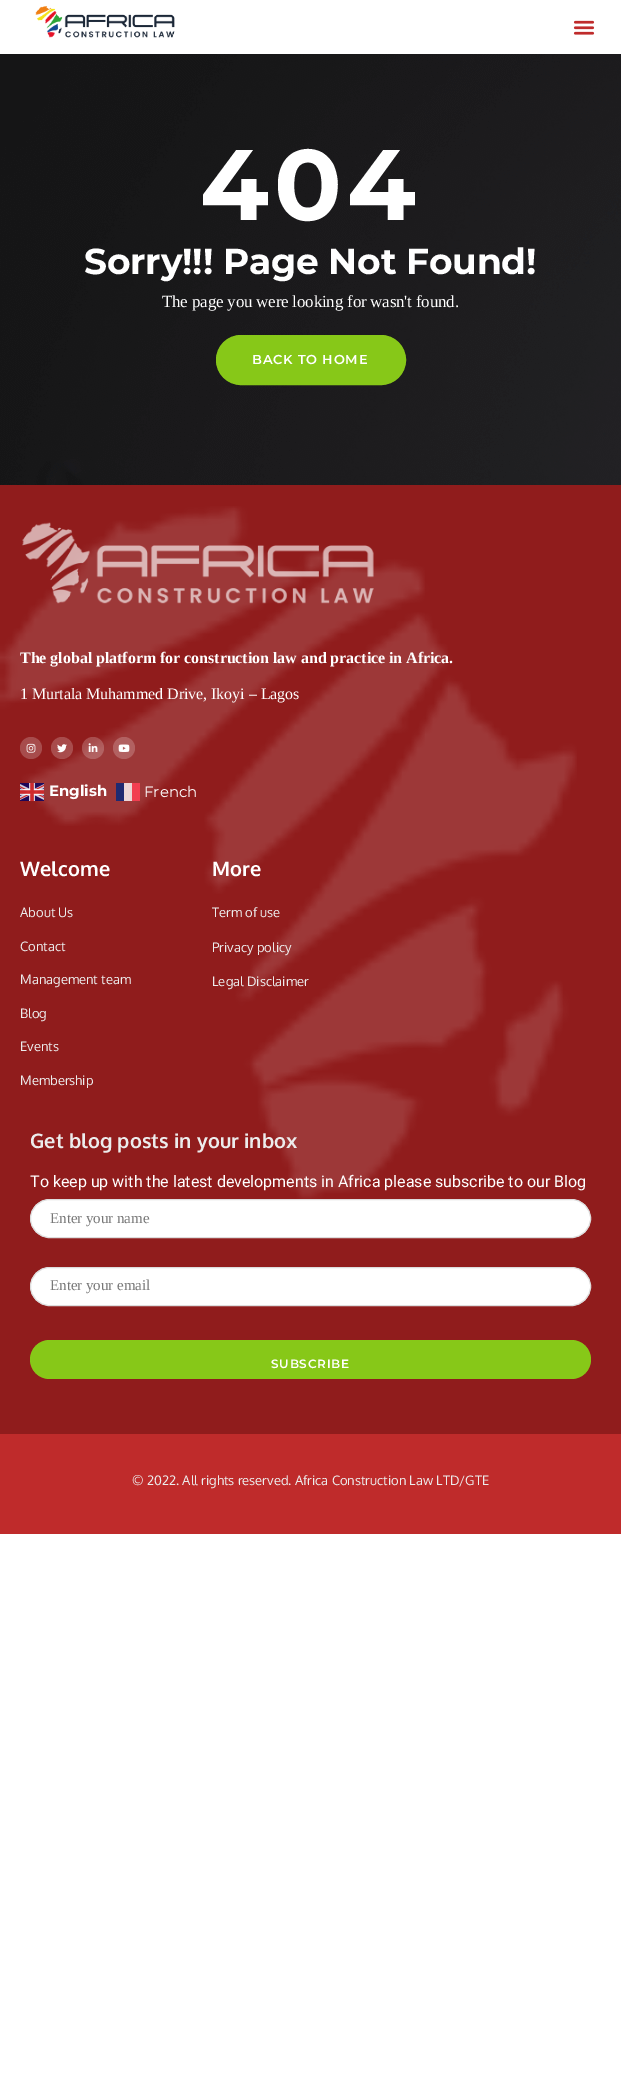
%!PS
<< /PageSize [621 2073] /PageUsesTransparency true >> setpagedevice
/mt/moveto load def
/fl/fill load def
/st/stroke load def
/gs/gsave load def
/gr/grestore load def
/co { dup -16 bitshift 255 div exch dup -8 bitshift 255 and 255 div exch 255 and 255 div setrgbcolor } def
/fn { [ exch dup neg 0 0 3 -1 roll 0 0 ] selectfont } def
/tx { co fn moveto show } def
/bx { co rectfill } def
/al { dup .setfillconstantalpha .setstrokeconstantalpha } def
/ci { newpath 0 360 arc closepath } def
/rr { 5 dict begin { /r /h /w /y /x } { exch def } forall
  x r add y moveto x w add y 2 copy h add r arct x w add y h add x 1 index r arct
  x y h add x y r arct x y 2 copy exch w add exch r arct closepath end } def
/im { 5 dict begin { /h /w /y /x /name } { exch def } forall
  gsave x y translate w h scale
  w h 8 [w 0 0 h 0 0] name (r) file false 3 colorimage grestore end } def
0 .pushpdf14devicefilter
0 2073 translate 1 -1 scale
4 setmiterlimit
0 0 621 2073 16#FFFFFF bx
(media/1.raw) 35 6 140 32 im
(media/2.raw) 573 20 22 15 im
(media/3.raw) 0 54 621 431 im
16#87C818 co
216.5 335.5 189 49 24.5 rr gs fl gr
st
0 485 621 949 16#901C1C bx
(media/4.raw) 0 506 577 693 im
(media/5.raw) 22 522 352 82 im
16#A74C4C co
31 748 11 ci fl
(media/6.raw) 26 743 10 10 im
0.21 al
16#FFFFFF co
62 748 11 ci fl
1 al
(media/7.raw) 57 744 10 9 im
0.21 al
93 748 11 ci fl
1 al
(media/8.raw) 88 743 10 9 im
16#B26161 co
124 748 11 ci fl
(media/9.raw) 118 744 12 8 im
(media/10.raw) 20 783 24 18 im
0.8 al
124 783 8 18 16#FFFFFF bx
1 al
116 783 8 18 16#1F2A71 bx
132 783 8 18 16#F23E51 bx
16#FFFFFF co
30.5 1199.5 560 38 19 rr gs fl gr
16#DDDDDD co
st
16#FFFFFF co
30.5 1267.5 560 38 19 rr gs fl gr
16#DDDDDD co
st
16#87C818 co
30 1340 561 39 19.5 rr fl
0 1434 621 100 16#BF2B2B bx
/Montserrat-Bold 100 fn
16#FFFFFF co
200 220 mt 5 0 (404) ashow
/Montserrat-Bold 36 fn
84 274 mt -.2 0 (Sorry!!! Page Not Found!) ashow
/LiberationSerif-Regular 17 fn
162 307 mt -.2 0 (The page you were looking for wasn't found.) ashow
/Montserrat-SemiBold 13 fn
252 364 mt .75 0 (BACK TO HOME) ashow
/LiberationSerif-Bold 16 fn
20 663 mt -.05 0 (The global platform for construction law and practice in Africa.) ashow
/LiberationSerif-Regular 16 fn
20 699 mt -.05 0 (1 Murtala Muhammed Drive, Ikoyi – Lagos) ashow
(English) 49 796 /Montserrat-Bold 15 16#FFFFFF tx
(French) 144 797 /Montserrat-Regular 15 16#FFFFFF tx
(Welcome) 20 876 /Oxygen-Bold 20 16#FFFFFF tx
(About Us) 20 917 /Oxygen-Regular 13 16#ECECEC tx
(Contact) 20 951 /Oxygen-Regular 13 16#ECECEC tx
(Management team) 20 984 /Oxygen-Regular 13 16#ECECEC tx
(Blog) 20 1018 /Oxygen-Regular 13 16#ECECEC tx
(Events) 20 1051 /Oxygen-Regular 13 16#ECECEC tx
(Membership) 20 1085 /Oxygen-Regular 13 16#ECECEC tx
(More) 212 876 /Oxygen-Bold 20 16#FFFFFF tx
(Term of use) 212 917 /Oxygen-Regular 13 16#ECECEC tx
(Privacy policy) 212 952 /Oxygen-Regular 13 16#ECECEC tx
(Legal Disclaimer) 212 986 /Oxygen-Regular 13 16#ECECEC tx
(Get blog posts in your inbox) 30 1148 /Oxygen-Bold 20 16#ECECEC tx
(To keep up with the latest developments in Africa please subscribe to our Blog) 30 1187 /Roboto-Regular 16 16#FFFFFF tx
/LiberationSerif-Regular 15 fn
16#777777 co
50 1223 mt -.05 0 (Enter your name) ashow
50 1290 mt -.05 0 (Enter your email) ashow
/Montserrat-SemiBold 12 fn
16#FFFFFF co
271 1368 mt .75 0 (SUBSCRIBE) ashow
(© 2022. All rights reserved. Africa Construction Law LTD/GTE) 132 1485 /Oxygen-Regular 13 16#ECECEC tx
.poppdf14devicefilter showpage
